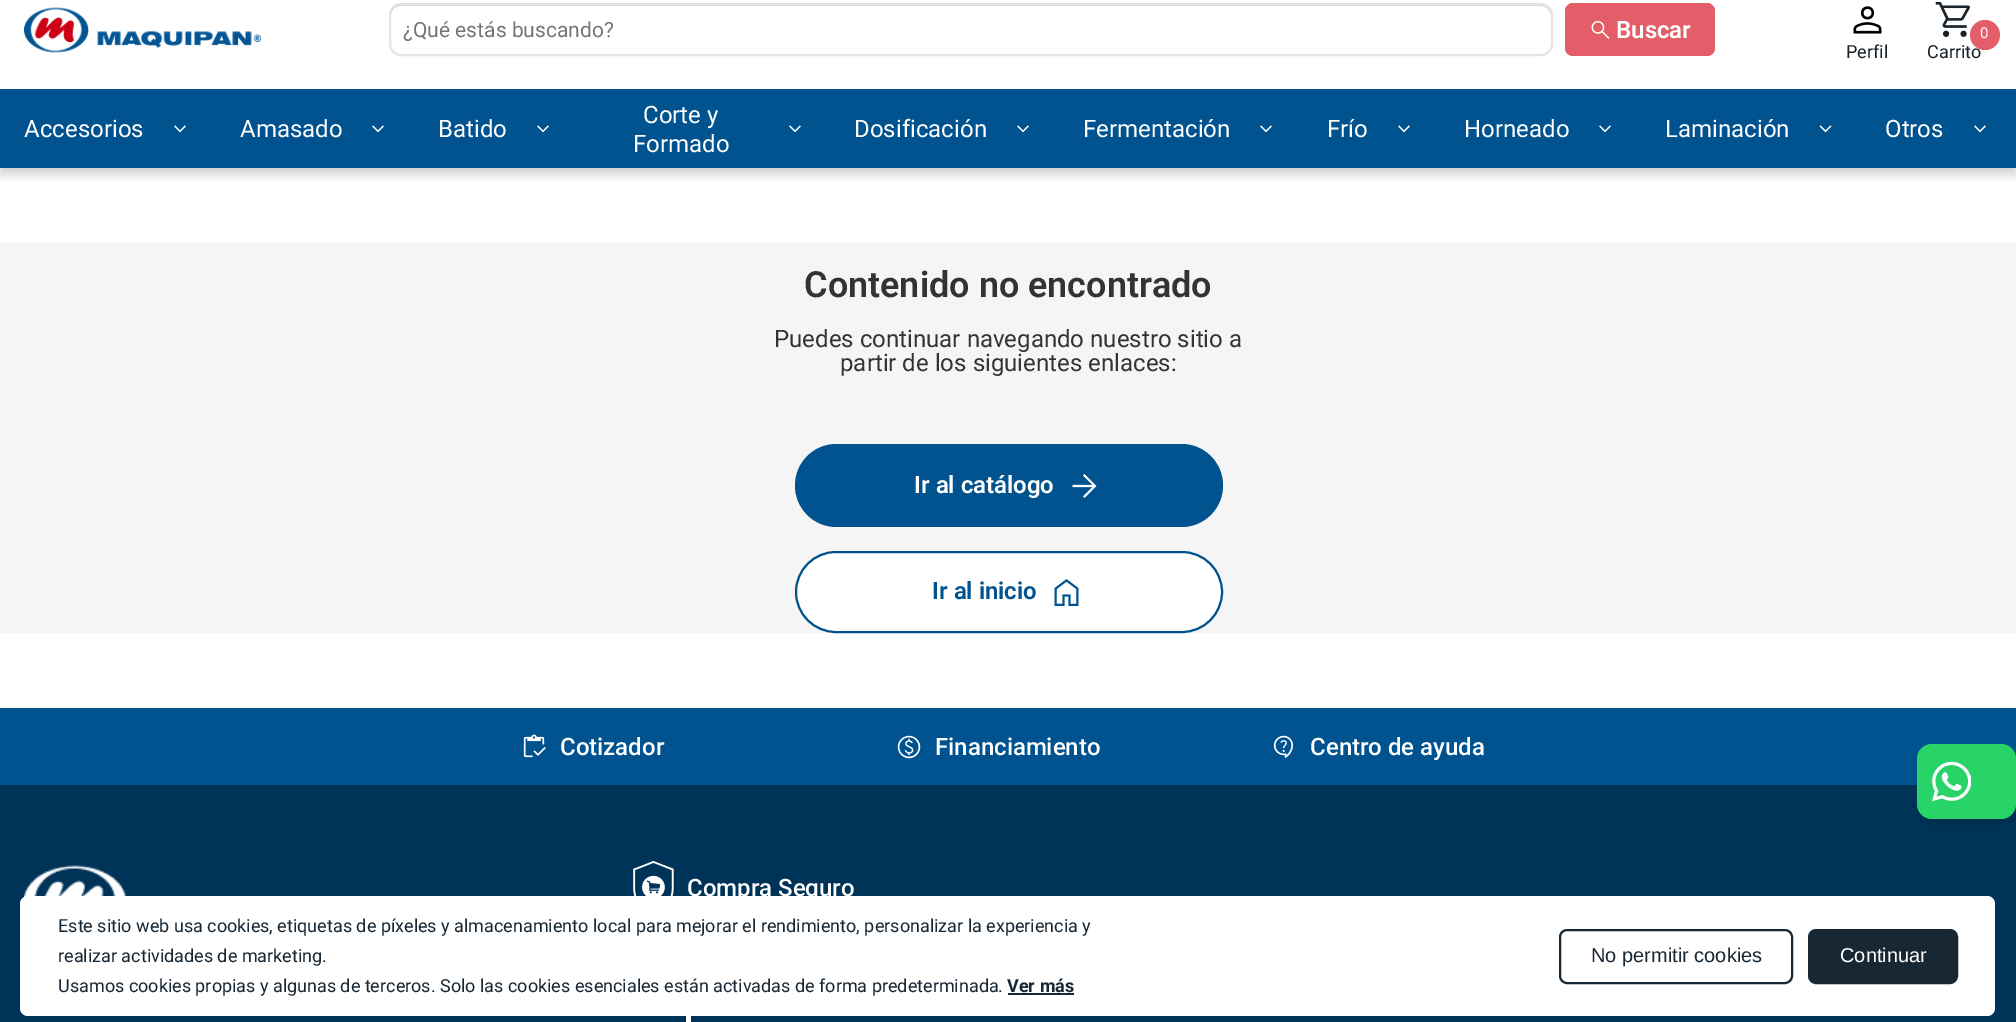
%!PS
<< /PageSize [2016 1022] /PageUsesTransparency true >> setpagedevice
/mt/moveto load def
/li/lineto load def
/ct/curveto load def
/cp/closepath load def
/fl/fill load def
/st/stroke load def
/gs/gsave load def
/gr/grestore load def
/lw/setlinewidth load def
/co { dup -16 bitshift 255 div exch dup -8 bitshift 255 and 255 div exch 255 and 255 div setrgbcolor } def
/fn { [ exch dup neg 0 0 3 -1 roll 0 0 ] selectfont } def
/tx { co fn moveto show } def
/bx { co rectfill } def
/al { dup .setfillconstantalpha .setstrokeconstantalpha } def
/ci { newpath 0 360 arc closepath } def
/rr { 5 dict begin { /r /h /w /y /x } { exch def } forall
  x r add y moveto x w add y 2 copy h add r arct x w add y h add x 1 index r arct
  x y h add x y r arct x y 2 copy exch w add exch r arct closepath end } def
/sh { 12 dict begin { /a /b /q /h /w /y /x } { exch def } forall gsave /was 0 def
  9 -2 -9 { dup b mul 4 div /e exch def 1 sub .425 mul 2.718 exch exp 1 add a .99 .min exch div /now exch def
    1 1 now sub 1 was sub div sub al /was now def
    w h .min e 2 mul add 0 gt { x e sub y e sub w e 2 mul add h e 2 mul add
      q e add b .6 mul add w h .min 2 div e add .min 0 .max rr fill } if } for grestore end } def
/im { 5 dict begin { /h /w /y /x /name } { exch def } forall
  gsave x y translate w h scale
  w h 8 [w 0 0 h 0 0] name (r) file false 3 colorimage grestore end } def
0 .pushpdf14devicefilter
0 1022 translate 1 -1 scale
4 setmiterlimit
0 0 2016 1022 16#FFFFFF bx
gs
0 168 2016 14 rectclip
16#000000 co
0 -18 2016 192 0 6 .2 sh
gr
(media/1.raw) 24 7 237 46 im
16#DFDFDF co
400 6 mt 1540 6 li 1546 6 1551 11 1551 16 ct 1551 10 1546 5 1540 5 ct 401 5 li 395 5 390 10 390 16 ct 390 11 395 6 400 6 ct cp fl
0.1 al
16#000000 co
2 lw
390 4 1162 51 11 rr st
1 al
16#E35E68 co
1565 3 150 53 8 rr fl
(media/2.raw) 1591 21 19 18 im
(media/3.raw) 1853 6 29 28 im
(media/4.raw) 1935 2 35 35 im
0 89 2016 79 16#00538E bx
(media/5.raw) 174 125 12 8 im
(media/5.raw) 372 125 12 8 im
(media/5.raw) 537 125 12 8 im
(media/5.raw) 789 125 12 8 im
(media/5.raw) 1017 125 12 8 im
(media/5.raw) 1260 125 12 8 im
(media/5.raw) 1398 125 12 8 im
(media/5.raw) 1599 125 12 8 im
(media/6.raw) 1819 125 13 8 im
(media/5.raw) 1974 125 12 8 im
0 243 2016 390 16#F5F5F5 bx
16#00538E co
795 444 428 83 41.5 rr fl
(media/7.raw) 1072 474 25 24 im
16#FFFFFF co
796 552 426 80 40 rr gs fl gr
16#00538E co
st
(media/8.raw) 1054 579 25 27 im
0 785 2016 237 16#003358 bx
0 708 2016 77 16#00538E bx
(media/9.raw) 523 734 23 24 im
(media/10.raw) 897 735 24 24 im
(media/11.raw) 1273 735 20 24 im
(media/12.raw) 24 865 102 33 im
(media/13.raw) 633 861 41 35 im
686 1016 5 6 16#FFFFFF bx
16#000000 co
1917 750 99 75 15 4.5 .1 sh
16#28D368 co
1917 744 99 75 15 rr fl
(media/14.raw) 1932 761 39 41 im
16#FFFFFF co
20 896 1975 120 8 rr fl
1008 993 66 2 16#182734 bx
1560 930 232 53 7 rr st
1809 930 148 53 7 rr gs fl gr
st
(¿Qué estás buscando?) 403 37 /Roboto-Regular 21 16#757575 tx
(Buscar) 1616 38 /Roboto-SemiBold 24 16#FFFFFF tx
(Perfil) 1846 58 /Roboto-Regular 18 16#18222A tx
(Carrito) 1927 58 /Roboto-Regular 18 16#18222A tx
16#E35E68 co
1985 35 15 ci fl
(0) 1980 38 /Roboto-Regular 15 16#FFFFFF tx
(Accesorios) 24 137 /Roboto-Regular 24 16#FFFFFF tx
(Amasado) 240 137 /Roboto-Regular 24 16#FFFFFF tx
(Batido) 438 137 /Roboto-Regular 24 16#FFFFFF tx
(Corte y) 643 123 /Roboto-Regular 24 16#FFFFFF tx
(Formado) 633 152 /Roboto-Regular 24 16#FFFFFF tx
(Dosificación) 854 137 /Roboto-Regular 24 16#FFFFFF tx
(Fermentación) 1083 137 /Roboto-Regular 24 16#FFFFFF tx
(Frío) 1327 137 /Roboto-Regular 24 16#FFFFFF tx
(Horneado) 1464 137 /Roboto-Regular 24 16#FFFFFF tx
(Laminación) 1665 137 /Roboto-Regular 24 16#FFFFFF tx
(Otros) 1885 137 /Roboto-Regular 24 16#FFFFFF tx
(Contenido no encontrado) 804 297 /Roboto-SemiBold 36 16#333333 tx
(Puedes continuar navegando nuestro sitio a) 774 347 /Roboto-Regular 24 16#333333 tx
(partir de los siguientes enlaces:) 840 371 /Roboto-Regular 24 16#333333 tx
(Ir al catálogo) 914 493 /Roboto-SemiBold 24 16#FFFFFF tx
(Ir al inicio) 932 599 /Roboto-SemiBold 24 16#00538E tx
(Cotizador) 560 755 /Roboto-Medium 24 16#FFFFFF tx
(Financiamiento) 935 755 /Roboto-Medium 24 16#FFFFFF tx
(Centro de ayuda) 1310 755 /Roboto-Medium 24 16#FFFFFF tx
(Compra Seguro) 687 896 /Roboto-Medium 24 16#FFFFFF tx
(Este sitio web usa cookies, etiquetas de píxeles y almacenamiento local para mejorar el rendimiento, personalizar la experiencia y) 58 932 /Roboto-Regular 18 16#182734 tx
(realizar actividades de marketing.) 58 962 /Roboto-Regular 18 16#182734 tx
(Usamos cookies propias y algunas de terceros. Solo las cookies esenciales están activadas de forma predeterminada.) 58 992 /Roboto-Regular 18 16#182734 tx
(Ver más) 1007 992 /Roboto-Bold 18 16#182734 tx
(No permitir cookies) 1591 962 /LiberationSans-Regular 20 16#182734 tx
(Continuar) 1840 962 /LiberationSans-Regular 20 16#FFFFFF tx
.poppdf14devicefilter showpage
